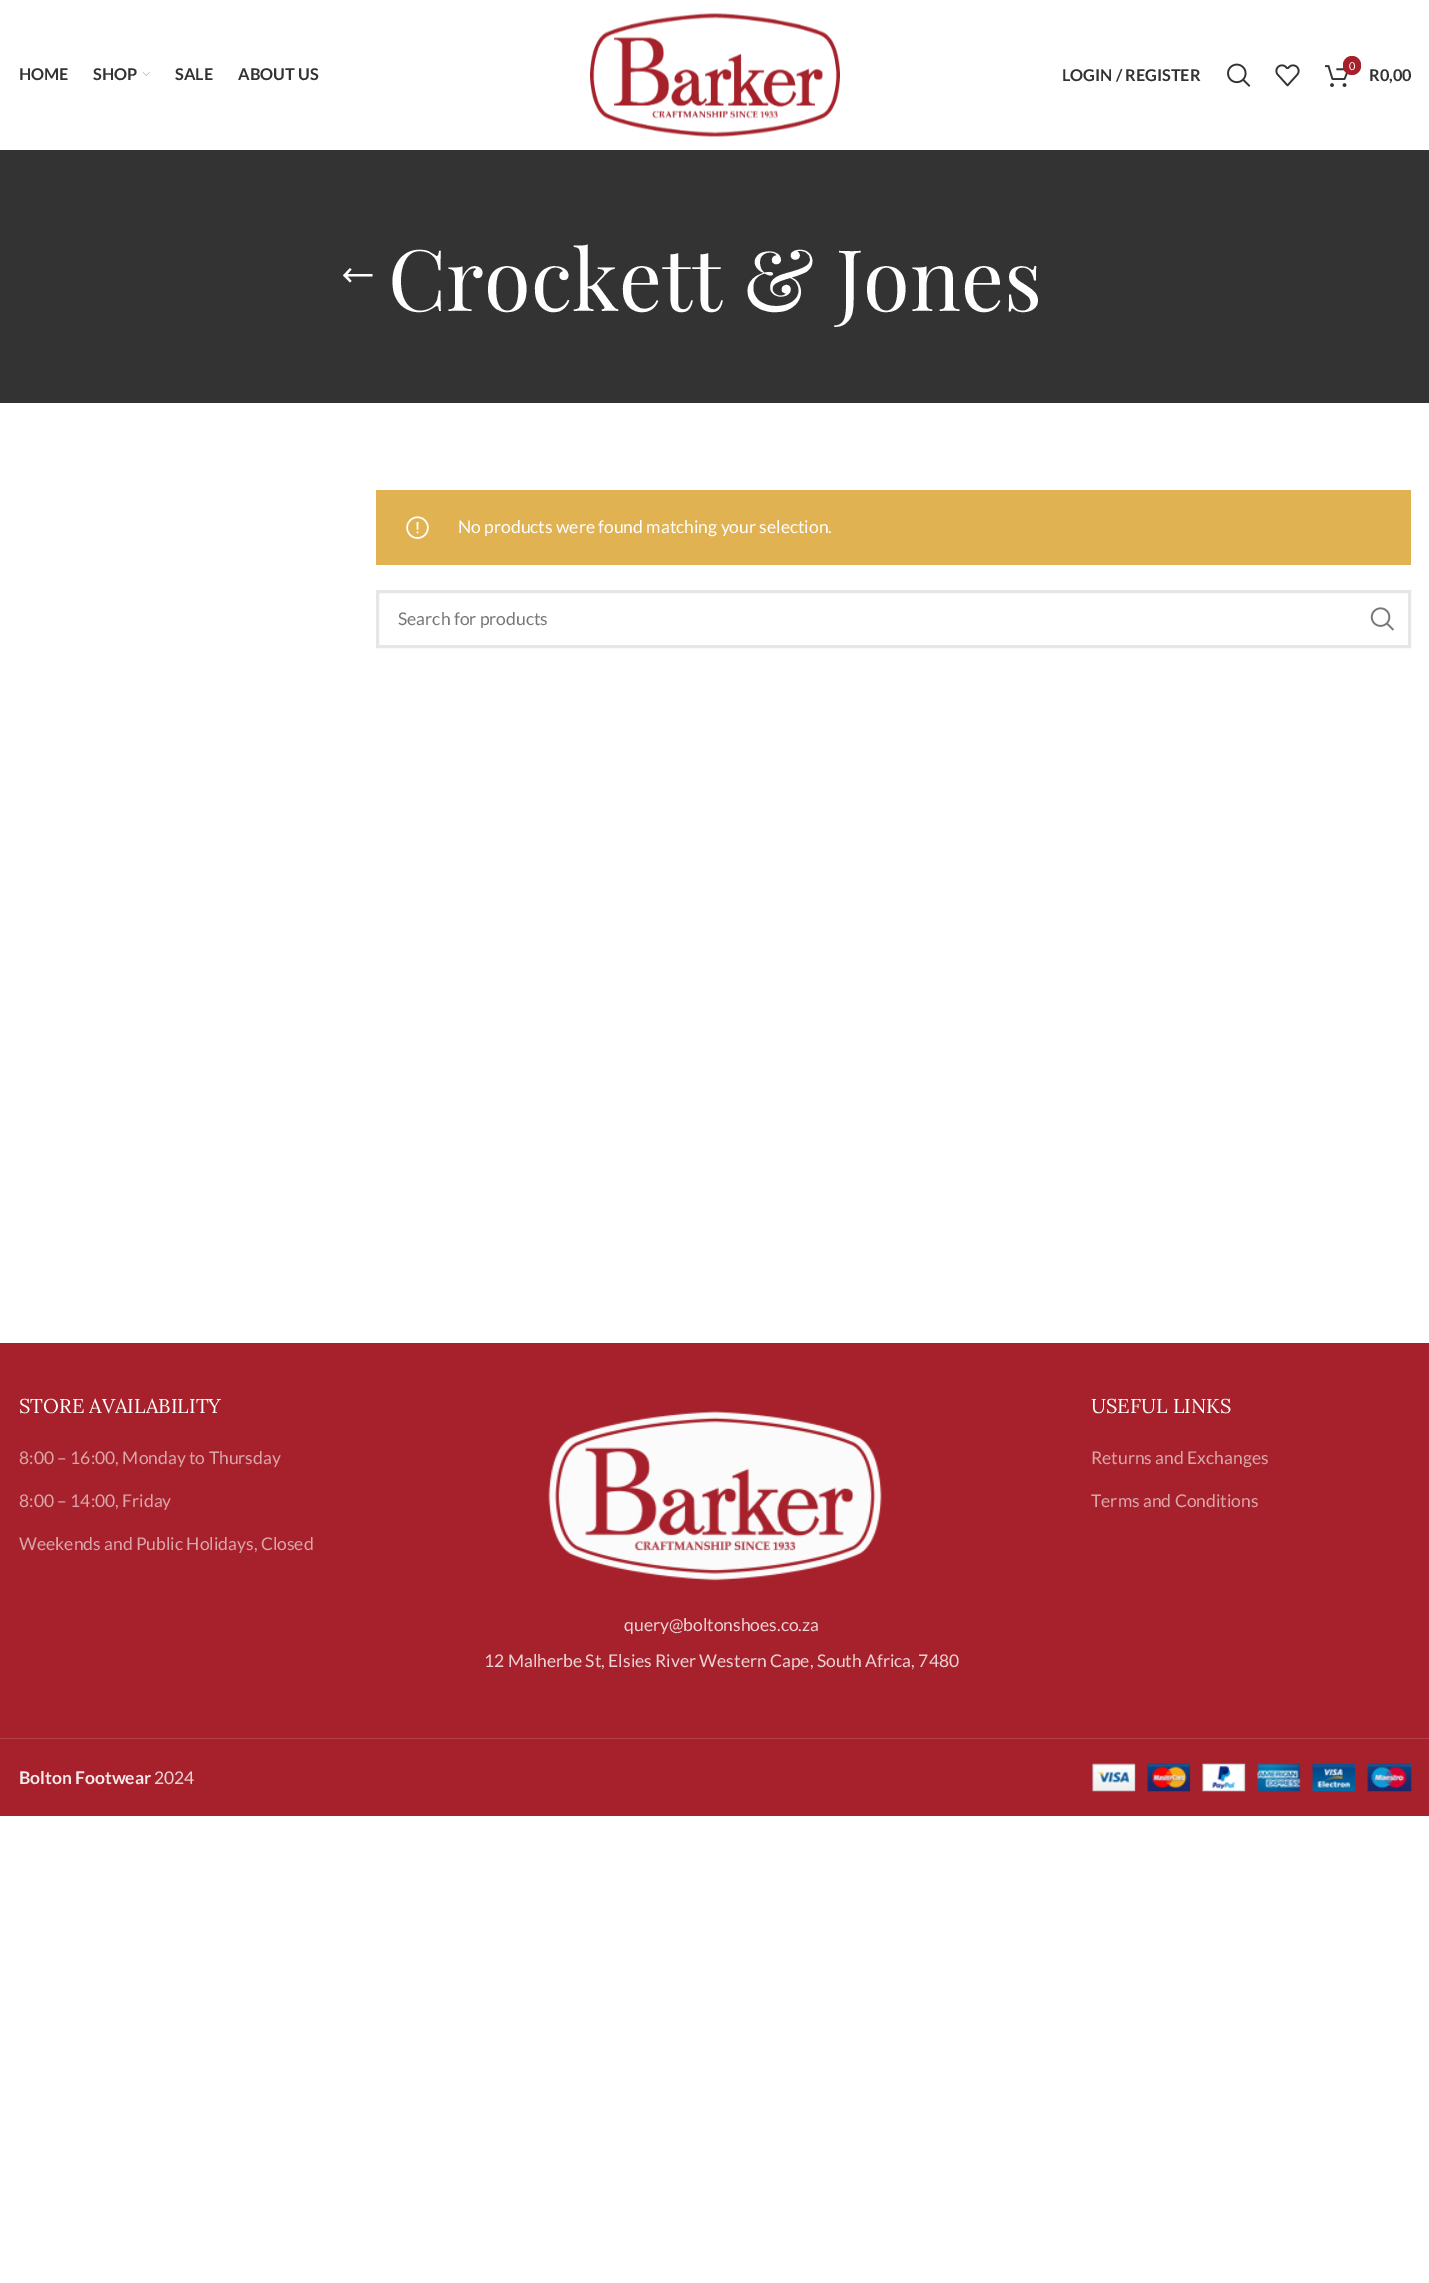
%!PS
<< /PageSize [1429 2283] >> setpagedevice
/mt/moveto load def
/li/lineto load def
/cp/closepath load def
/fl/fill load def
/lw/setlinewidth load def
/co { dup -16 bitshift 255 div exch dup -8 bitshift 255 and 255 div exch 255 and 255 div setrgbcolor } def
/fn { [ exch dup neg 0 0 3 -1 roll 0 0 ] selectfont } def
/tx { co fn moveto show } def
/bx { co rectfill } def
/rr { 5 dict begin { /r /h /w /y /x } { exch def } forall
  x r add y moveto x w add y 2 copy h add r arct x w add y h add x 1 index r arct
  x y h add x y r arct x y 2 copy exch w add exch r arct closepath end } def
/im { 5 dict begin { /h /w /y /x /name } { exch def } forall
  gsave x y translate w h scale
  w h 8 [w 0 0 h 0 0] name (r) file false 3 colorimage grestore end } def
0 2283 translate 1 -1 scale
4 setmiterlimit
0 0 1429 2283 16#FFFFFF bx
(media/1.raw) 142 72 8 4 im
(media/2.raw) 590 13 250 124 im
(media/3.raw) 1227 63 24 24 im
(media/4.raw) 1275 64 25 23 im
(media/5.raw) 1325 65 23 22 im
16#A6212B co
1343 56 18 19 9 rr fl
0 150 1429 253 16#333333 bx
16#FFFFFF co
351.5 281 mt 347.5 276.5 li 372.5 276.5 li 372.5 274 li 347.5 274 li 351.5 269.5 li 350 268 li 343 275.5 li 350 282.5 li cp fl
376 490 1035 75 16#E0B252 bx
(media/6.raw) 406 516 23 23 im
16#E6E6E6 co
3 lw
377.5 591.5 1032 55 rectstroke
(media/7.raw) 1370 607 24 24 im
0 1343 1429 473 16#A6212B bx
(media/8.raw) 548 1411 334 170 im
0 1738 1429 1 16#B3424B bx
(media/9.raw) 1092 1763 320 29 im
(HOME) 19 80 /Lato-Bold 16.25 16#333333 tx
(SHOP) 93 80 /Lato-Bold 16.25 16#333333 tx
(SALE) 175 80 /Lato-Bold 16.25 16#333333 tx
(ABOUT US) 238 80 /Lato-Bold 16.25 16#333333 tx
(LOGIN / REGISTER) 1062 81 /Lato-Bold 16.25 16#333333 tx
(0) 1349 70 /Lato-Regular 11 16#FFFFFF tx
(R0,00) 1369 81 /Lato-Bold 16.25 16#333333 tx
(Crockett & Jones) 388 311 /PlayfairDisplay-Regular 85 16#FFFFFF tx
(No products were found matching your selection.) 458 533 /Lato-Regular 17.5 16#FFFFFF tx
(Search for products) 398 625 /Lato-Regular 17.5 16#777777 tx
(STORE AVAILABILITY) 19 1413 /Lora-Regular 20 16#FFFFFF tx
(8:00 – 16:00, Monday to Thursday) 19 1464 /Lato-Regular 17.5 16#DBA6AA tx
(8:00 – 14:00, Friday) 19 1507 /Lato-Regular 17.5 16#DBA6AA tx
(Weekends and Public Holidays, Closed) 19 1550 /Lato-Regular 17.5 16#DBA6AA tx
(USEFUL LINKS) 1091 1413 /Lora-Regular 20 16#FFFFFF tx
(Returns and Exchanges) 1091 1464 /Lato-Regular 17.5 16#DBA6AA tx
(Terms and Conditions) 1091 1507 /Lato-Regular 17.5 16#DBA6AA tx
(query@boltonshoes.co.za) 624 1631 /Lato-Regular 17.5 16#EDD3D5 tx
(12 Malherbe St, Elsies River Western Cape, South Africa, 7480) 484 1667 /Lato-Regular 17.5 16#EDD3D5 tx
(Bolton Footwear) 19 1784 /Lato-Bold 17.5 16#F6E9EA tx
(2024) 154 1784 /Lato-Regular 17.5 16#EDD3D5 tx
showpage
